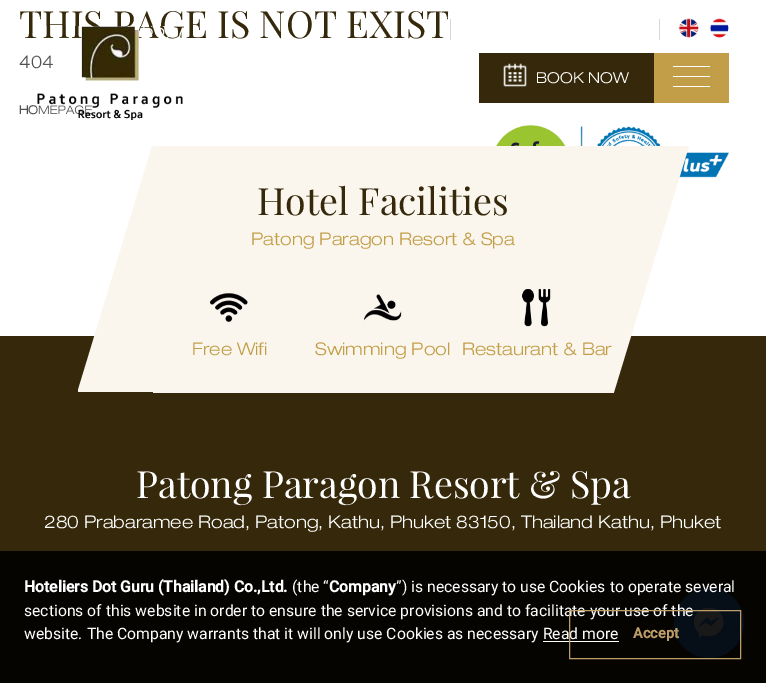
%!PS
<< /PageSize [766 683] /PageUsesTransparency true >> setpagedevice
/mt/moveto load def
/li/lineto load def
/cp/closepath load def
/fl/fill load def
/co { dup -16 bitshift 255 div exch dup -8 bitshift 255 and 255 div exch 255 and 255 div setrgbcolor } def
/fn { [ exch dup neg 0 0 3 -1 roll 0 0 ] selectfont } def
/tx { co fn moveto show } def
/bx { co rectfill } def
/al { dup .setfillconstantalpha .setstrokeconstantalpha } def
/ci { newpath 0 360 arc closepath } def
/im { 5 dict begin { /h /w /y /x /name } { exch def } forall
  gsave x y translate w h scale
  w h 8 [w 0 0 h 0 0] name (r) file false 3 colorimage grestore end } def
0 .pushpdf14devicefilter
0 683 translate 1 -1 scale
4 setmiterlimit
0 0 766 683 16#FFFFFF bx
450 19 1 21 16#D6D6D6 bx
659 19 1 21 16#D6D6D6 bx
(media/2.raw) 678 18 21 20 im
(media/3.raw) 710 18 19 20 im
479 53 175 50 16#36290B bx
(media/4.raw) 503 63 24 24 im
654 53 75 50 16#C39E48 bx
673 66 37 1 16#FFFFFF bx
673 76 37 1 16#FFFFFF bx
673 86 37 1 16#FFFFFF bx
(media/5.raw) 496 125 233 53 im
0 336 766 347 16#36290B bx
16#FAF6EE co
152 146 mt 78 390 li 78 392 li 227 392 li cp fl
539 146 mt 689 146 li 614 392 li 539 147 li cp fl
153 146 461 247 16#FAF6EE bx
(media/6.raw) 210 293 38 30 im
(media/7.raw) 364 294 38 27 im
(media/8.raw) 522 289 29 38 im
16#3D8AF7 co
709 623 35 ci fl
(media/9.raw) 694 608 30 30 im
0.9 al
0 551 766 132 16#000000 bx
1 al
543 641 76 1 16#FFFFFF bx
(THIS PAGE IS NOT EXIST) 19 38 /PlayfairDisplay-Regular 37.5 16#36290B tx
(404) 19 68 /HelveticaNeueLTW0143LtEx-Light 17.5 16#505050 tx
(HOMEPAGE) 19 114 /HelveticaNeueLTW0143LtEx-Bold 11.75 16#505050 tx
(media/1.raw) 37 26 146 94 im
(BOOK NOW) 536 83 /HelveticaNeueLTW0143LtEx-Light 15 16#FFFFFF tx
(Hotel Facilities) 257 215 /PlayfairDisplay-Regular 37.5 16#36290B tx
(Patong Paragon Resort & Spa) 251 245 /HelveticaNeueLTW0143LtEx-Light 17.5 16#C39E48 tx
(Free Wifi) 192 355 /HelveticaNeueLTW0143LtEx-Light 17.5 16#C39E48 tx
(Swimming Pool) 315 355 /HelveticaNeueLTW0143LtEx-Light 17.5 16#C39E48 tx
(Restaurant & Bar) 462 355 /HelveticaNeueLTW0143LtEx-Light 17.5 16#C39E48 tx
(Patong Paragon Resort & Spa) 136 498 /PlayfairDisplay-Regular 37.5 16#FFFFFF tx
(280 Prabaramee Road, Patong, Kathu, Phuket 83150, Thailand Kathu, Phuket) 44 528 /HelveticaNeueLTW0143LtEx-Light 17.5 16#FFFFFF tx
(Hoteliers Dot Guru \(Thailand\) Co.,Ltd.) 24 592 /Roboto-Bold 15.75 16#FFFFFF tx
(\(the “) 292 592 /Roboto-Regular 15.75 16#FFFFFF tx
(Company) 329 592 /Roboto-Bold 15.75 16#FFFFFF tx
(”\) is necessary to use Cookies to operate several) 396 592 /Roboto-Regular 15.75 16#FFFFFF tx
(sections of this website in order to ensure the service provisions and to facilitate your use of the) 24 616 /Roboto-Regular 15.75 16#FFFFFF tx
(website. The Company warrants that it will only use Cookies as necessary Read more) 24 639 /Roboto-Regular 15.75 16#FFFFFF tx
16#BE9E68 co
569.5 610.5 171 48 rectstroke
(Accept) 633 638 /Roboto-Bold 14.5 16#BE9E68 tx
.poppdf14devicefilter showpage
